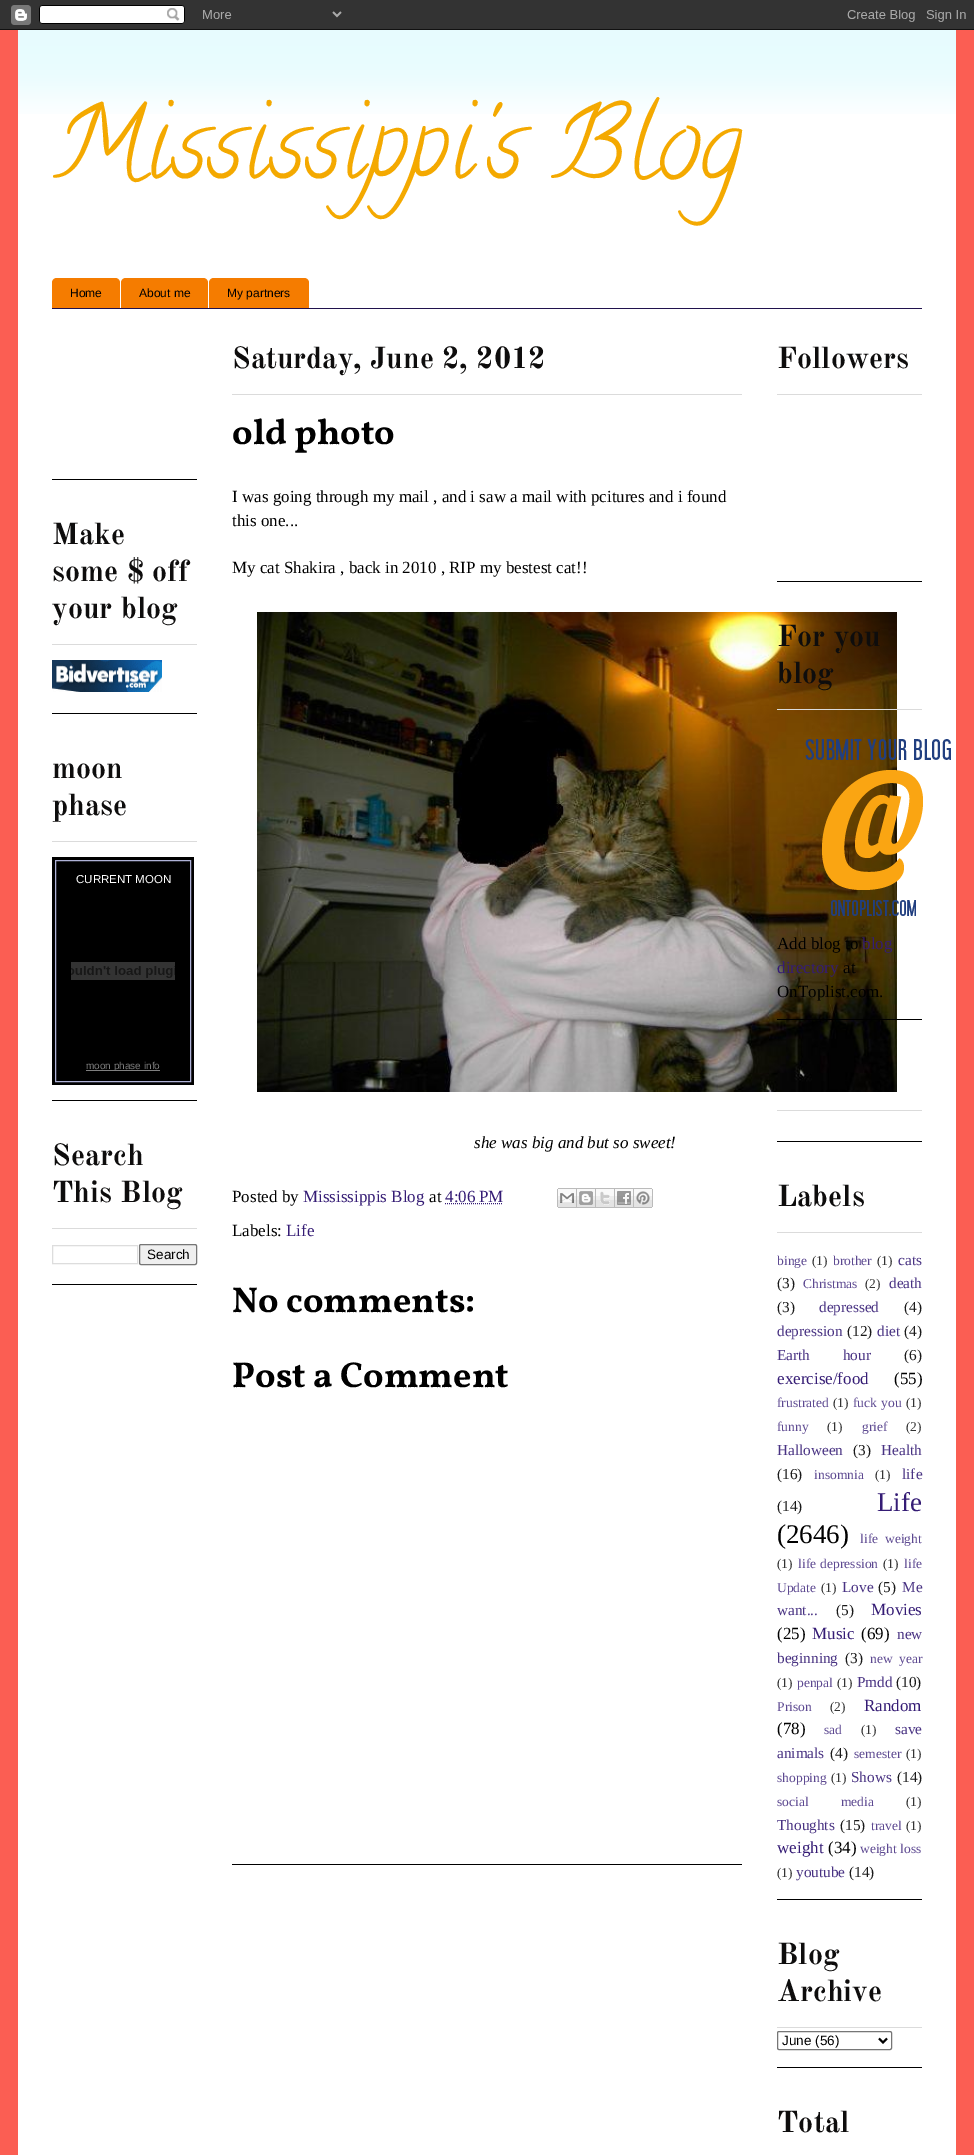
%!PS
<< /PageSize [974 2155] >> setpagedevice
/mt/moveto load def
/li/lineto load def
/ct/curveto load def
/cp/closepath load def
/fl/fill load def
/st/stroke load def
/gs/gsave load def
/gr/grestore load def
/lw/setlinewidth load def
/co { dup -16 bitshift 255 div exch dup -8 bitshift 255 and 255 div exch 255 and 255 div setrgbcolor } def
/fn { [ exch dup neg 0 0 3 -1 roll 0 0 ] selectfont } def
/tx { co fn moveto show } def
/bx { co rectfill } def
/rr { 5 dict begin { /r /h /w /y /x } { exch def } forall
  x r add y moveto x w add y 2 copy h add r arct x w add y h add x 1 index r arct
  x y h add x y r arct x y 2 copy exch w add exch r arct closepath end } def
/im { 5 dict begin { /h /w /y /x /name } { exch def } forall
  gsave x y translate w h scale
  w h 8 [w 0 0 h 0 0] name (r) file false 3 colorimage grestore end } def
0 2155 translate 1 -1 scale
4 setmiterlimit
0 0 974 2155 16#FB5E53 bx
(media/1.raw) 0 0 974 30 im
18 30 938 2125 16#FFFFFF bx
(media/2.raw) 18 30 938 84 im
52 308 870 1 16#20124D bx
16#F57C00 co
57 278 mt 115 278 li 118 278 120 280 120 283 ct 120 308 li 52 308 li 52 283 li 52 280 54 278 57 278 ct cp fl
126 278 mt 203 278 li 206 278 208 280 208 283 ct 208 308 li 121 308 li 121 283 li 121 280 123 278 126 278 ct cp fl
214 278 mt 304 278 li 307 278 309 280 309 283 ct 309 308 li 209 308 li 209 283 li 209 280 211 278 214 278 ct cp fl
52 479 145 1 16#000000 bx
52 713 145 1 16#000000 bx
52 644 145 1 16#DBDBDB bx
(media/3.raw) 52 660 110 32 im
52 1100 145 1 16#000000 bx
52 841 145 1 16#DBDBDB bx
52 857 142 228 16#000000 bx
16#AFB2D8 co
55.5 860.5 135 221 rectstroke
(media/4.raw) 71 962 104 18 im
86 1070 74 1 16#7F7F7F bx
52 1284 145 1 16#000000 bx
52 1228 145 1 16#DBDBDB bx
16#DDDDDD co
52.5 1245.5 85 18 rectstroke
16#EFEFEF co
139.5 1244.5 57 20 1.5 rr gs fl gr
16#767676 co
st
232 394 510 1 16#DBDBDB bx
232 1864 510 1 16#000000 bx
(media/5.raw) 257 612 640 480 im
16#351C75 co
[1 1] 0 setdash
445 1203.5 mt 503 1203.5 li st
(media/6.raw) 557 1188 20 20 im
(media/7.raw) 577 1188 19 20 im
(media/8.raw) 596 1188 19 20 im
(media/9.raw) 615 1188 19 20 im
(media/10.raw) 634 1188 19 20 im
777 581 145 1 16#000000 bx
777 394 145 1 16#DBDBDB bx
777 1019 145 1 16#000000 bx
777 709 145 1 16#DBDBDB bx
(media/11.raw) 805 739 146 177 im
777 1141 145 1 16#000000 bx
777 1110 145 1 16#DBDBDB bx
777 1899 145 1 16#000000 bx
777 1232 145 1 16#DBDBDB bx
777 2067 145 1 16#000000 bx
777 2027 145 1 16#DBDBDB bx
16#767676 co
[] 0 setdash
777.5 2031.5 114 18 1.5 rr st
16#000000 co
2 lw
879 2038.5 mt 883 2042.5 li 887 2038.5 li st
(Mississippi's Blog) 52 175 /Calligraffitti-Regular 100 16#F4A900 tx
(Home) 70 297 /LiberationSans-Regular 12 16#000000 tx
(About me) 139 297 /LiberationSans-Regular 12 16#000000 tx
(My partners) 227 297 /LiberationSans-Regular 12 16#000000 tx
(Make) 52 544 /OldStandardTT-Bold 30 16#0E0D0D tx
(some $ off) 52 581 /OldStandardTT-Bold 30 16#0E0D0D tx
(your blog) 52 618 /OldStandardTT-Bold 30 16#0E0D0D tx
(moon) 52 778 /OldStandardTT-Bold 30 16#0E0D0D tx
(phase) 52 815 /OldStandardTT-Bold 30 16#0E0D0D tx
(CURRENT MOON) 76 883 /LiberationSans-Regular 11.5 16#FFFFFF tx
(moon phase info) 86 1069 /LiberationSans-Regular 10 16#7F7F7F tx
(Search) 52 1165 /OldStandardTT-Bold 30 16#0E0D0D tx
(This Blog) 52 1202 /OldStandardTT-Bold 30 16#0E0D0D tx
(Search) 147 1259 /LiberationSans-Regular 13.5 16#000000 tx
(Saturday, June 2, 2012) 232 368 /OldStandardTT-Bold 30 16#0E0D0D tx
(old photo) 232 444 /Vollkorn-Bold 36 16#000000 tx
(I was going through my mail , and i saw a mail with pcitures and i found) 232 502 /LiberationSerif-Regular 17 16#000000 tx
(this one...) 232 526 /LiberationSerif-Regular 17 16#000000 tx
(My cat Shakira , back in 2010 , RIP my bestest cat!!) 232 573 /LiberationSerif-Regular 17 16#000000 tx
(she was big and but so sweet!) 474 1148 /LiberationSerif-Italic 17 16#000000 tx
(Posted by) 232 1202 /LiberationSerif-Regular 17 16#000000 tx
(Mississippis Blog) 303 1202 /LiberationSerif-Regular 17 16#351C75 tx
(at) 429 1202 /LiberationSerif-Regular 17 16#000000 tx
(4:06 PM) 445 1202 /LiberationSerif-Regular 17 16#351C75 tx
(Labels:) 232 1236 /LiberationSerif-Regular 17 16#000000 tx
(Life) 286 1236 /LiberationSerif-Regular 17 16#351C75 tx
(No comments:) 232 1312 /Vollkorn-Bold 36 16#000000 tx
(Post a Comment) 232 1387 /Vollkorn-Bold 36 16#000000 tx
(Followers) 777 368 /OldStandardTT-Bold 30 16#0E0D0D tx
(For you) 777 646 /OldStandardTT-Bold 30 16#0E0D0D tx
(blog) 777 683 /OldStandardTT-Bold 30 16#0E0D0D tx
(Add blog to) 777 949 /LiberationSerif-Regular 17 16#000000 tx
(blog) 862 949 /LiberationSerif-Regular 17 16#351C75 tx
(directory) 777 973 /LiberationSerif-Regular 17 16#351C75 tx
(at) 843 973 /LiberationSerif-Regular 17 16#000000 tx
(OnToplist.com.) 777 997 /LiberationSerif-Regular 17 16#000000 tx
(Labels) 777 1206 /OldStandardTT-Bold 30 16#0E0D0D tx
(binge) 777 1265 /LiberationSerif-Regular 13.5 16#5D4991 tx
(\(1\)) 812 1265 /LiberationSerif-Regular 13.5 16#333333 tx
(brother) 833 1265 /LiberationSerif-Regular 13.5 16#5D4991 tx
(\(1\)) 877 1265 /LiberationSerif-Regular 13.5 16#333333 tx
(cats) 898 1265 /LiberationSerif-Regular 15.25 16#493383 tx
(\(3\)) 777 1288 /LiberationSerif-Regular 15.25 16#1A1A1A tx
(Christmas) 803 1288 /LiberationSerif-Regular 13.5 16#5D4991 tx
(\(2\)) 865 1288 /LiberationSerif-Regular 13.5 16#333333 tx
(death) 889 1288 /LiberationSerif-Regular 15.25 16#493383 tx
(\(3\)) 777 1312 /LiberationSerif-Regular 15.25 16#1A1A1A tx
(depressed) 819 1312 /LiberationSerif-Regular 15.25 16#493383 tx
(\(4\)) 904 1312 /LiberationSerif-Regular 15.25 16#1A1A1A tx
(depression) 777 1336 /LiberationSerif-Regular 15.25 16#493383 tx
(\(12\)) 847 1336 /LiberationSerif-Regular 15.25 16#1A1A1A tx
(diet) 877 1336 /LiberationSerif-Regular 15.25 16#493383 tx
(\(4\)) 904 1336 /LiberationSerif-Regular 15.25 16#1A1A1A tx
16#493383 co
777 1360 mt 29 0 32 (Earth hour) widthshow
(\(6\)) 904 1360 /LiberationSerif-Regular 15.25 16#1A1A1A tx
(exercise/food) 777 1384 /LiberationSerif-Regular 17 16#351C75 tx
(\(55\)) 894 1384 /LiberationSerif-Regular 17 16#000000 tx
(frustrated) 777 1407 /LiberationSerif-Regular 13.5 16#5D4991 tx
(\(1\)) 833 1407 /LiberationSerif-Regular 13.5 16#333333 tx
16#5D4991 co
853 1407 mt 1 0 32 (fuck you) widthshow
(\(1\)) 906 1407 /LiberationSerif-Regular 13.5 16#333333 tx
(funny) 777 1431 /LiberationSerif-Regular 13.5 16#5D4991 tx
(\(1\)) 827 1431 /LiberationSerif-Regular 13.5 16#333333 tx
(grief) 862 1431 /LiberationSerif-Regular 13.5 16#5D4991 tx
(\(2\)) 906 1431 /LiberationSerif-Regular 13.5 16#333333 tx
(Halloween) 777 1455 /LiberationSerif-Regular 15.25 16#493383 tx
(\(3\)) 853 1455 /LiberationSerif-Regular 15.25 16#1A1A1A tx
(Health) 881 1455 /LiberationSerif-Regular 15.25 16#493383 tx
(\(16\)) 777 1479 /LiberationSerif-Regular 15.25 16#1A1A1A tx
(insomnia) 814 1479 /LiberationSerif-Regular 13.5 16#5D4991 tx
(\(1\)) 875 1479 /LiberationSerif-Regular 13.5 16#333333 tx
(life) 902 1479 /LiberationSerif-Regular 15.25 16#493383 tx
(\(14\)) 777 1511 /LiberationSerif-Regular 15.25 16#1A1A1A tx
(Life) 877 1511 /LiberationSerif-Regular 27 16#351C75 tx
(\(2646\)) 777 1543 /LiberationSerif-Regular 27 16#000000 tx
(life) 860 1543 /LiberationSerif-Regular 13.5 16#5D4991 tx
(weight) 885 1543 /LiberationSerif-Regular 13.5 16#5D4991 tx
(\(1\)) 777 1568 /LiberationSerif-Regular 13.5 16#333333 tx
16#5D4991 co
798 1568 mt 1 0 32 (life depression) widthshow
(\(1\)) 883 1568 /LiberationSerif-Regular 13.5 16#333333 tx
(life) 904 1568 /LiberationSerif-Regular 13.5 16#5D4991 tx
(Update) 777 1592 /LiberationSerif-Regular 13.5 16#5D4991 tx
(\(1\)) 821 1592 /LiberationSerif-Regular 13.5 16#333333 tx
(Love) 842 1592 /LiberationSerif-Regular 15.25 16#493383 tx
(\(5\)) 878 1592 /LiberationSerif-Regular 15.25 16#1A1A1A tx
(Me) 902 1592 /LiberationSerif-Regular 15.25 16#493383 tx
(want...) 777 1615 /LiberationSerif-Regular 15.25 16#493383 tx
(\(5\)) 836 1615 /LiberationSerif-Regular 15.25 16#1A1A1A tx
(Movies) 871 1615 /LiberationSerif-Regular 17 16#351C75 tx
(\(25\)) 777 1639 /LiberationSerif-Regular 17 16#000000 tx
(Music) 812 1639 /LiberationSerif-Regular 17 16#351C75 tx
(\(69\)) 861 1639 /LiberationSerif-Regular 17 16#000000 tx
(new) 897 1639 /LiberationSerif-Regular 15.25 16#493383 tx
(beginning) 777 1663 /LiberationSerif-Regular 15.25 16#493383 tx
(\(3\)) 845 1663 /LiberationSerif-Regular 15.25 16#1A1A1A tx
/LiberationSerif-Regular 13.5 fn
16#5D4991 co
870 1663 mt 3 0 32 (new year) widthshow
(\(1\)) 777 1687 /LiberationSerif-Regular 13.5 16#333333 tx
(penpal) 797 1687 /LiberationSerif-Regular 13.5 16#5D4991 tx
(\(1\)) 837 1687 /LiberationSerif-Regular 13.5 16#333333 tx
(Pmdd) 857 1687 /LiberationSerif-Regular 15.25 16#493383 tx
(\(10\)) 896 1687 /LiberationSerif-Regular 15.25 16#1A1A1A tx
(Prison) 777 1711 /LiberationSerif-Regular 13.5 16#5D4991 tx
(\(2\)) 830 1711 /LiberationSerif-Regular 13.5 16#333333 tx
(Random) 864 1711 /LiberationSerif-Regular 17 16#351C75 tx
(\(78\)) 777 1734 /LiberationSerif-Regular 17 16#000000 tx
(sad) 824 1734 /LiberationSerif-Regular 13.5 16#5D4991 tx
(\(1\)) 861 1734 /LiberationSerif-Regular 13.5 16#333333 tx
(save) 895 1734 /LiberationSerif-Regular 15.25 16#493383 tx
(animals) 777 1758 /LiberationSerif-Regular 15.25 16#493383 tx
(\(4\)) 830 1758 /LiberationSerif-Regular 15.25 16#1A1A1A tx
(semester) 854 1758 /LiberationSerif-Regular 13.5 16#5D4991 tx
(\(1\)) 906 1758 /LiberationSerif-Regular 13.5 16#333333 tx
(shopping) 777 1782 /LiberationSerif-Regular 13.5 16#5D4991 tx
(\(1\)) 831 1782 /LiberationSerif-Regular 13.5 16#333333 tx
(Shows) 851 1782 /LiberationSerif-Regular 15.25 16#493383 tx
(\(14\)) 897 1782 /LiberationSerif-Regular 15.25 16#1A1A1A tx
/LiberationSerif-Regular 13.5 fn
16#5D4991 co
777 1806 mt 29 0 32 (social media) widthshow
(\(1\)) 906 1806 /LiberationSerif-Regular 13.5 16#333333 tx
(Thoughts) 777 1830 /LiberationSerif-Regular 15.25 16#493383 tx
(\(15\)) 840 1830 /LiberationSerif-Regular 15.25 16#1A1A1A tx
(travel) 871 1830 /LiberationSerif-Regular 13.5 16#5D4991 tx
(\(1\)) 906 1830 /LiberationSerif-Regular 13.5 16#333333 tx
(weight) 777 1853 /LiberationSerif-Regular 17 16#351C75 tx
(\(34\)) 828 1853 /LiberationSerif-Regular 17 16#000000 tx
(weight loss) 860 1853 /LiberationSerif-Regular 13.5 16#5D4991 tx
(\(1\)) 777 1877 /LiberationSerif-Regular 13.5 16#333333 tx
(youtube) 796 1877 /LiberationSerif-Regular 15.25 16#493383 tx
(\(14\)) 849 1877 /LiberationSerif-Regular 15.25 16#1A1A1A tx
(Blog) 777 1964 /OldStandardTT-Bold 30 16#0E0D0D tx
(Archive) 777 2001 /OldStandardTT-Bold 30 16#0E0D0D tx
(June \(56\)) 782 2045 /LiberationSans-Regular 13.5 16#000000 tx
(Total) 777 2132 /OldStandardTT-Bold 30 16#0E0D0D tx
showpage
